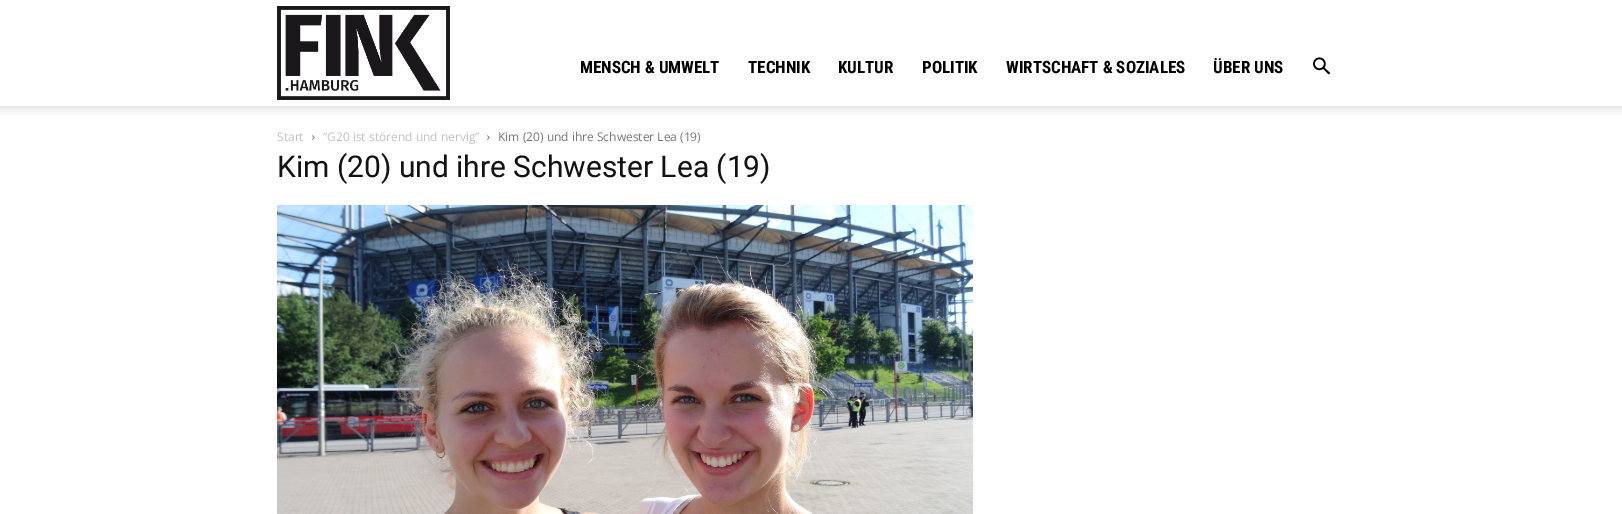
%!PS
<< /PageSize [1622 514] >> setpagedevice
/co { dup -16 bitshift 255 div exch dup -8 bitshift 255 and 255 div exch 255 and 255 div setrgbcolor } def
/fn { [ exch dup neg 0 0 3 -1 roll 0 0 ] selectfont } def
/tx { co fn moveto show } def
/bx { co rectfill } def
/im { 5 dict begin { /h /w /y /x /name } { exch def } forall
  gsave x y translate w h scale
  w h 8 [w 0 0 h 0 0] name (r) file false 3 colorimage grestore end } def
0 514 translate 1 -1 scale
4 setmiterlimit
0 0 1622 514 16#FFFFFF bx
(media/1.raw) 277 6 173 94 im
(media/2.raw) 1313 57 17 18 im
(media/3.raw) 0 106 1622 9 im
(media/4.raw) 312 135 3 5 im
(media/4.raw) 487 135 3 5 im
(media/5.raw) 277 205 696 309 im
(MENSCH & UMWELT) 580 73 /RobotoCondensed-Bold 17 16#000000 tx
(TECHNIK) 748 73 /RobotoCondensed-Bold 17 16#000000 tx
(KULTUR) 838 73 /RobotoCondensed-Bold 17 16#000000 tx
(POLITIK) 922 73 /RobotoCondensed-Bold 17 16#000000 tx
(WIRTSCHAFT & SOZIALES) 1006 73 /RobotoCondensed-Bold 17 16#000000 tx
(ÜBER UNS) 1213 73 /RobotoCondensed-Bold 17 16#000000 tx
(Start) 277 141 /OpenSans-Regular 12 16#C3C3C3 tx
(“G20 ist störend und nervig”) 323 141 /OpenSans-Regular 12 16#C3C3C3 tx
(Kim \(20\) und ihre Schwester Lea \(19\)) 498 141 /OpenSans-Regular 12 16#777777 tx
(Kim \(20\) und ihre Schwester Lea \(19\)) 277 177 /Roboto-Regular 30 16#111111 tx
showpage
